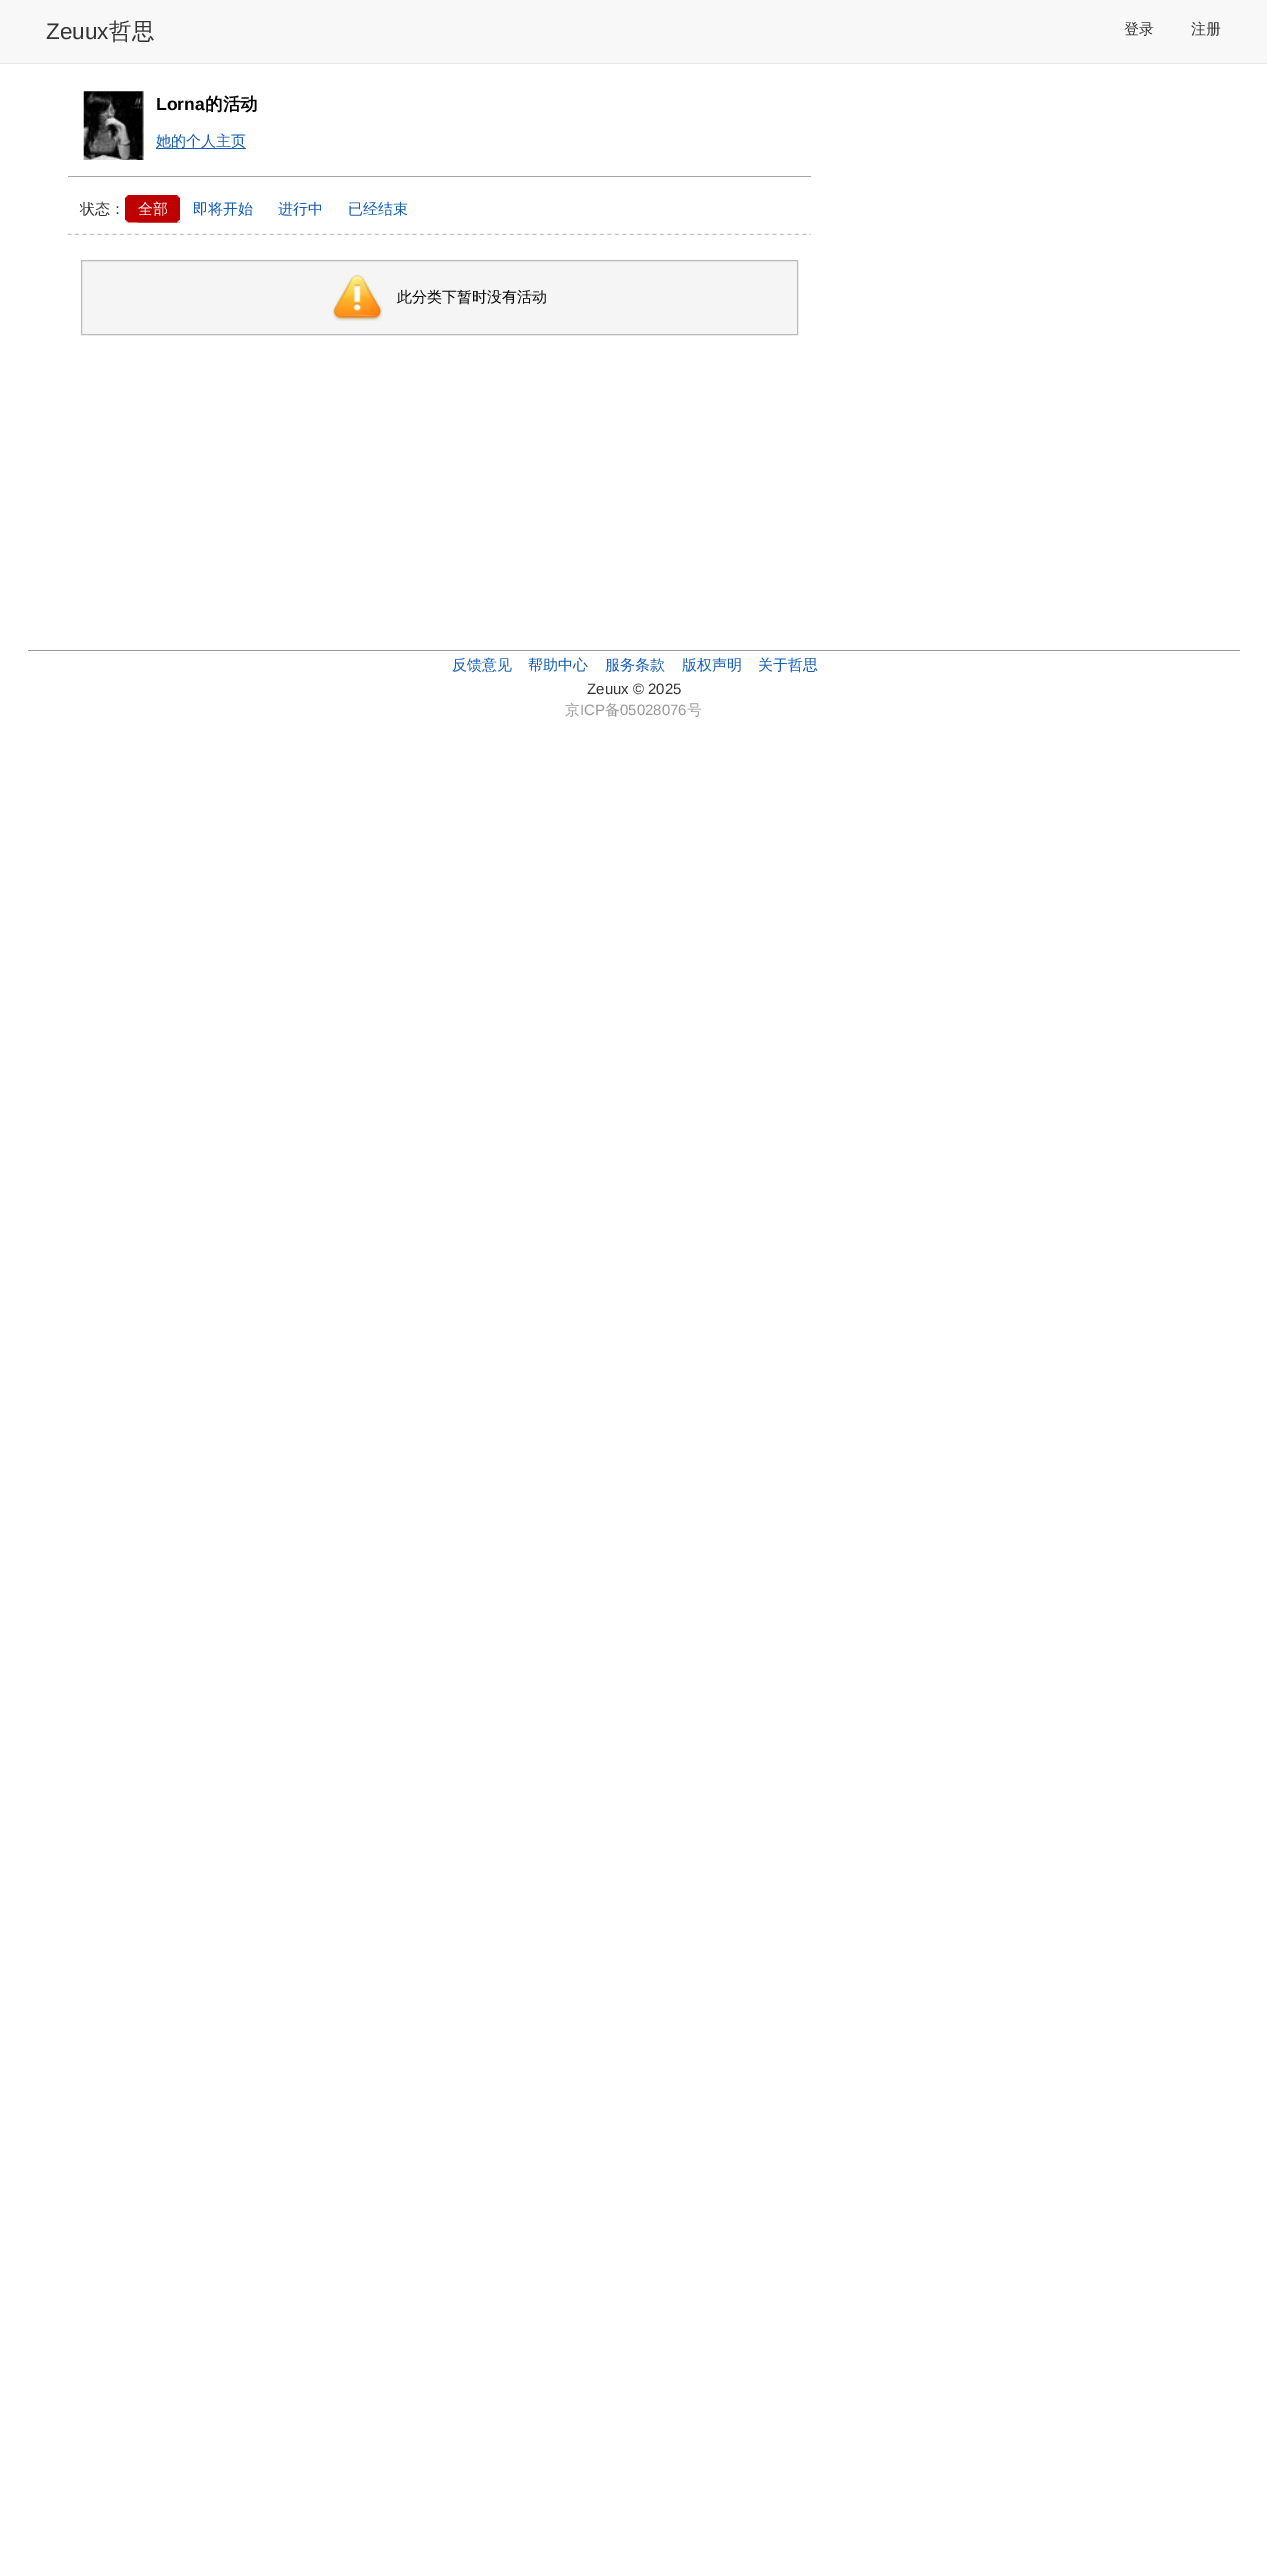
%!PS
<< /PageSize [1267 2555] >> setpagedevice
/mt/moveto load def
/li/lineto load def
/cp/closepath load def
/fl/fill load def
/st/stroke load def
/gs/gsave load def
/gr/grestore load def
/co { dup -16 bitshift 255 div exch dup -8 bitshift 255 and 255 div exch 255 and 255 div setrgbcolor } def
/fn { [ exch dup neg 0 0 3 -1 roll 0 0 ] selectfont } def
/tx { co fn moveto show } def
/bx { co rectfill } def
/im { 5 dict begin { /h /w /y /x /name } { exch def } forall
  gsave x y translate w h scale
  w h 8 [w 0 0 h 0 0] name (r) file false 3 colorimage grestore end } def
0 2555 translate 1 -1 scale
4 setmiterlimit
0 0 1267 2555 16#FFFFFF bx
0 0 1267 63 16#F8F8F8 bx
0 63 1267 1 16#E7E7E7 bx
68 176 743 1 16#A6A6A6 bx
(media/1.raw) 83 91 61 69 im
156 148 90 1 16#105CB6 bx
(media/2.raw) 67 233 745 2 im
(media/3.raw) 125 195 55 28 im
(media/4.raw) 137 195 43 28 im
16#F5F5F5 co
81.5 260.5 mt 797.5 260.5 li 797.5 334.5 li 81.5 334.5 li cp gs fl gr
16#BBBBBB co
st
(media/5.raw) 332 274 51 47 im
28 650 1212 1 16#999999 bx
(Zeuux) 46 39 /LiberationSans-Regular 22.5 16#333333 tx
(哲思) 109 39 /WenQuanYiZenHei-Medium 22.5 16#333333 tx
(登录) 1124 34 /WenQuanYiZenHei-Medium 15 16#333333 tx
(注册) 1191 34 /WenQuanYiZenHei-Medium 15 16#333333 tx
(Lorna) 156 110 /LiberationSans-Bold 17.5 16#000000 tx
(的活动) 205 110 /WenQuanYiZenHei-Bold 17.5 16#000000 tx
(她的个人主页) 156 146 /WenQuanYiZenHei-Medium 15 16#105CB6 tx
(状态：) 80 214 /WenQuanYiZenHei-Medium 15 16#333333 tx
(全部) 138 214 /WenQuanYiZenHei-Medium 15 16#FFFFFF tx
(即将开始) 193 214 /WenQuanYiZenHei-Medium 15 16#105CB6 tx
(进行中) 278 214 /WenQuanYiZenHei-Medium 15 16#105CB6 tx
(已经结束) 348 214 /WenQuanYiZenHei-Medium 15 16#105CB6 tx
(此分类下暂时没有活动) 397 302 /WenQuanYiZenHei-Medium 15 16#000000 tx
(反馈意见) 452 670 /WenQuanYiZenHei-Medium 15 16#105CB6 tx
(帮助中心) 528 670 /WenQuanYiZenHei-Medium 15 16#105CB6 tx
(服务条款) 605 670 /WenQuanYiZenHei-Medium 15 16#105CB6 tx
(版权声明) 682 670 /WenQuanYiZenHei-Medium 15 16#105CB6 tx
(关于哲思) 758 670 /WenQuanYiZenHei-Medium 15 16#105CB6 tx
(Zeuux © 2025) 587 694 /LiberationSans-Regular 15 16#333333 tx
(京) 565 715 /WenQuanYiZenHei-Medium 15 16#999999 tx
(ICP) 580 715 /LiberationSans-Regular 15 16#999999 tx
(备) 605 715 /WenQuanYiZenHei-Medium 15 16#999999 tx
(05028076) 620 715 /LiberationSans-Regular 15 16#999999 tx
(号) 687 715 /WenQuanYiZenHei-Medium 15 16#999999 tx
showpage
